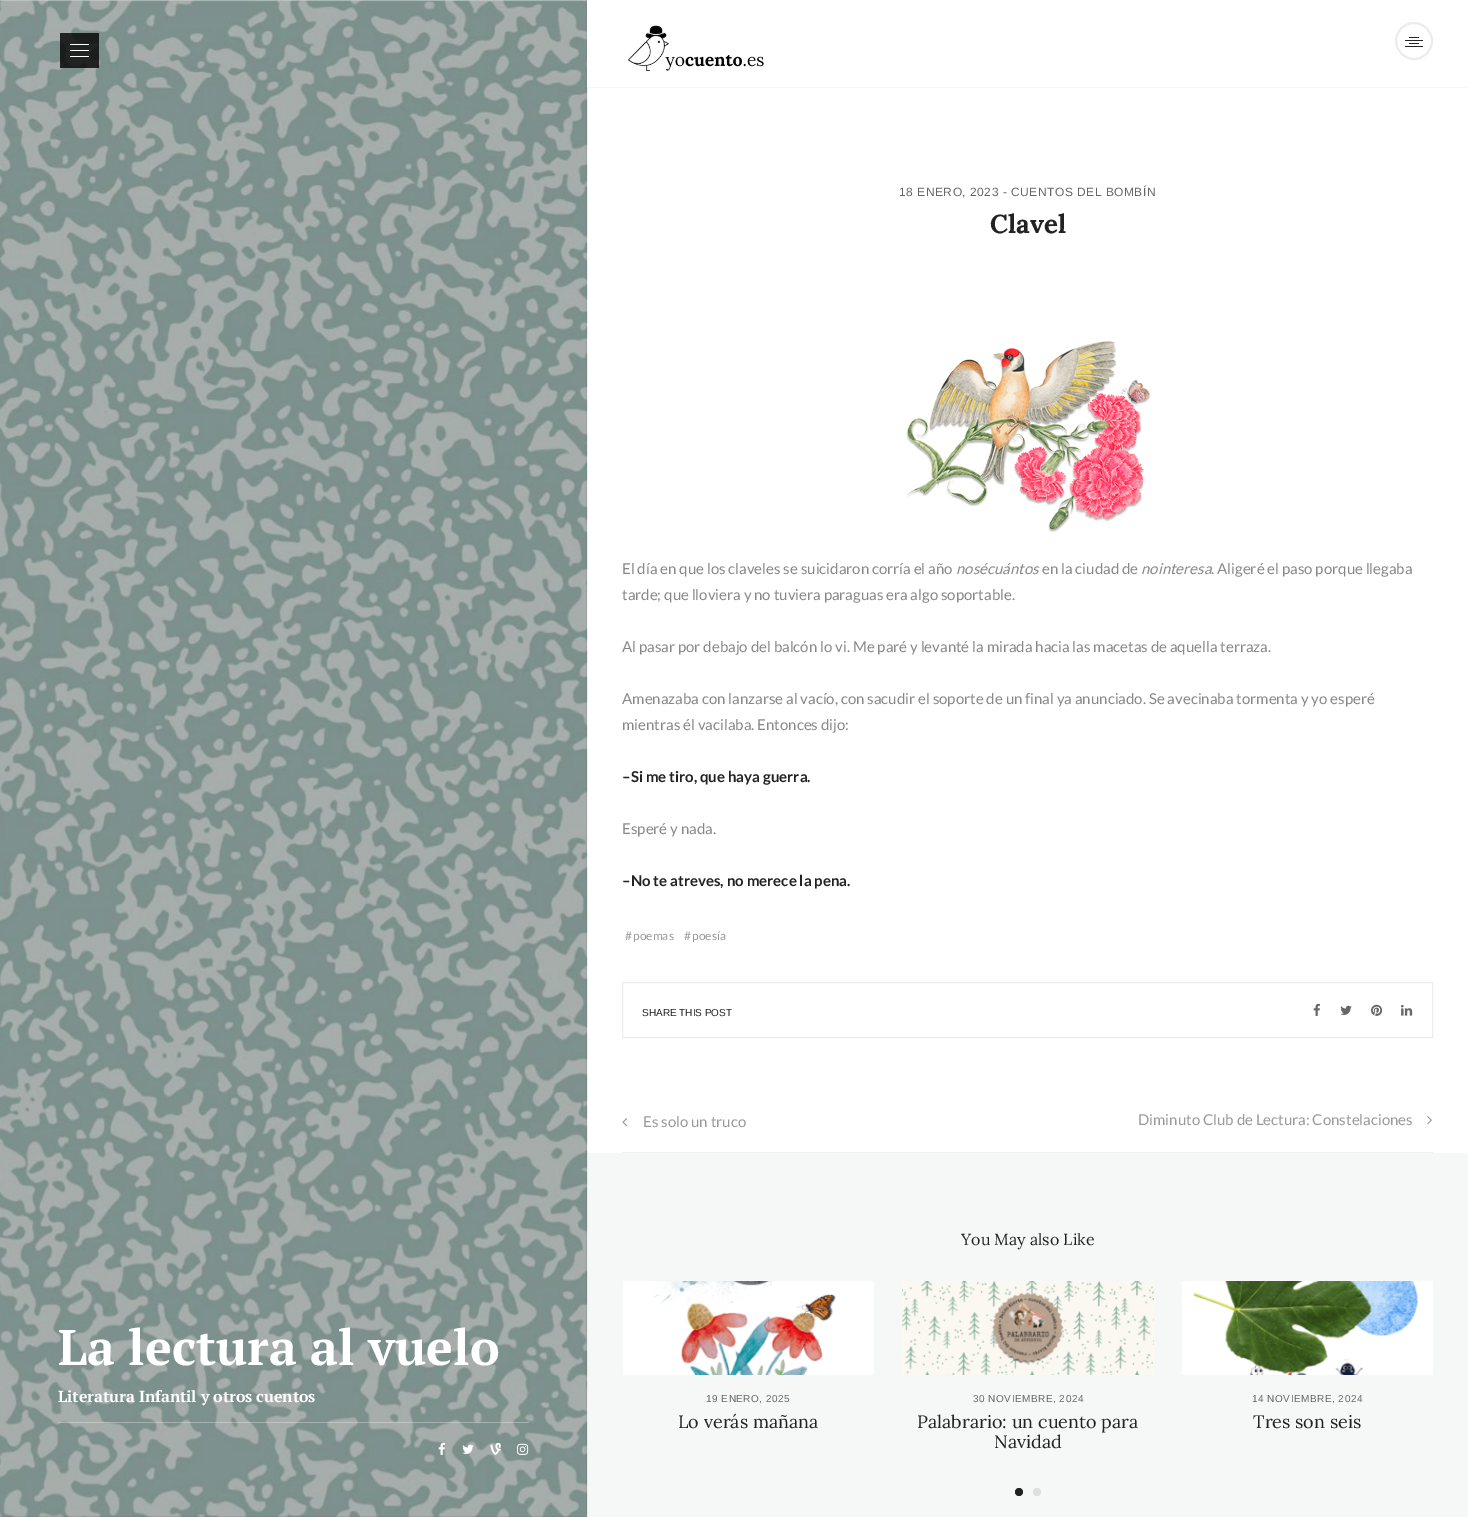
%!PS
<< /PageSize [1468 1517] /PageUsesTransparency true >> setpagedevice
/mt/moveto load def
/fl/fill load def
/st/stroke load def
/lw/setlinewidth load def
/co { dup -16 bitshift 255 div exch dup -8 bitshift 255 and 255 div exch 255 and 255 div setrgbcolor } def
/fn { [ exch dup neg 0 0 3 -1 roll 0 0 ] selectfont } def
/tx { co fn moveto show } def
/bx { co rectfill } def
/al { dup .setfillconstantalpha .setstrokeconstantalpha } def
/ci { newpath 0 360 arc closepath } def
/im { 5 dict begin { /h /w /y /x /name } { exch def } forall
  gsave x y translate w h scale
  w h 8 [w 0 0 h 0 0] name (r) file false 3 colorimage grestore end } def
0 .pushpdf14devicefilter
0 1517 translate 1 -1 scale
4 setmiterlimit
0 0 1468 1517 16#FFFFFF bx
0 0 587 1517 16#646464 bx
587 1153 881 364 16#F6F7F7 bx
(media/2.raw) 0 0 588 1517 im
587 0 1 87 16#FFFFFF bx
587 87 881 1 16#F5F5F5 bx
(media/1.raw) 627 25 137 47 im
16#ECECEE co
2 lw
1414 41 18 ci st
1409 37 10 1 16#232323 bx
1405 40 18 1 16#232323 bx
1409 43 10 1 16#232323 bx
1405 46 18 1 16#232323 bx
0.8 al
60 33 39 35 16#000000 bx
1 al
70 44 19 1 16#FFFFFF bx
70 50 19 1 16#FFFFFF bx
70 56 19 1 16#FFFFFF bx
0.3 al
58 1422 471 1 16#FFFFFF bx
1 al
(media/3.raw) 438 1442 7 13 im
(media/4.raw) 462 1444 12 10 im
(media/5.raw) 490 1442 11 13 im
(media/6.raw) 517 1443 12 12 im
622 1152 811 1 16#F0F0F0 bx
(media/7.raw) 906 341 245 191 im
16#ECECEC co
1 lw
622.5 982.5 810 55 rectstroke
(media/8.raw) 1313 1003 7 13 im
(media/9.raw) 1340 1005 12 10 im
(media/10.raw) 1371 1004 12 12 im
(media/11.raw) 1401 1004 12 12 im
(media/12.raw) 622 1118 6 9 im
(media/13.raw) 1427 1116 5 9 im
(media/14.raw) 623 1281 251 94 im
(media/15.raw) 902 1281 252 94 im
(media/16.raw) 1182 1281 251 94 im
16#222222 co
1019 1492 4 ci fl
16#DDDEDE co
1037 1492 4 ci fl
(La lectura al vuelo) 58 1365 /PTSerif-Bold 50 16#FFFFFF tx
/PTSerif-Bold 16 fn
58 1402 mt -.1 0 (Literatura Infantil y otros cuentos) ashow
/LiberationSans-Regular 12 fn
16#666666 co
899 196 mt .5 0 (18 ENERO, 2023 - CUENTOS DEL BOMBÍN) ashow
(Clavel) 990 233 /Lora-Bold 26 16#222222 tx
(El día en que los claveles se suicidaron corría el año) 622 574 /Lato-Regular 15 16#888888 tx
(nosécuántos) 956 574 /Lato-Italic 15 16#888888 tx
(en la ciudad de) 1042 574 /Lato-Regular 15 16#888888 tx
(nointeresa) 1141 574 /Lato-Italic 15 16#888888 tx
(. Aligeré el paso porque llegaba) 1211 574 /Lato-Regular 15 16#888888 tx
(tarde; que lloviera y no tuviera paraguas era algo soportable.) 622 600 /Lato-Regular 15 16#888888 tx
(Al pasar por debajo del balcón lo vi. Me paré y levanté la mirada hacia las macetas de aquella terraza.) 622 652 /Lato-Regular 15 16#888888 tx
(Amenazaba con lanzarse al vacío, con sacudir el soporte de un final ya anunciado. Se avecinaba tormenta y yo esperé) 622 704 /Lato-Regular 15 16#888888 tx
(mientras él vacilaba. Entonces dijo:) 622 730 /Lato-Regular 15 16#888888 tx
(–Si me tiro, que haya guerra.) 622 782 /Lato-Bold 15 16#222222 tx
(Esperé y nada.) 622 834 /Lato-Regular 15 16#888888 tx
(–No te atreves, no merece la pena.) 622 886 /Lato-Bold 15 16#222222 tx
(#) 625 940 /Lato-Regular 12 16#999999 tx
(poemas) 633 940 /Lato-Regular 12 16#999999 tx
(#) 684 940 /Lato-Regular 12 16#999999 tx
(poesía) 692 940 /Lato-Regular 12 16#999999 tx
(SHARE THIS POST) 642 1016 /LiberationSans-Regular 10 16#222222 tx
(Es solo un truco) 643 1127 /Lato-Regular 15 16#999999 tx
(Diminuto Club de Lectura: Constelaciones) 1138 1125 /Lato-Regular 15 16#999999 tx
(You May also Like) 961 1245 /Lora-Regular 16 16#222222 tx
/LiberationSans-Regular 10 fn
16#666666 co
706 1402 mt .5 0 (19 ENERO, 2025) ashow
(Lo verás mañana) 678 1428 /Lora-Regular 18 16#222222 tx
/LiberationSans-Regular 10 fn
16#666666 co
973 1402 mt .5 0 (30 NOVIEMBRE, 2024) ashow
(Palabrario: un cuento para) 917 1428 /Lora-Regular 18 16#222222 tx
(Navidad) 994 1448 /Lora-Regular 18 16#222222 tx
/LiberationSans-Regular 10 fn
16#666666 co
1252 1402 mt .5 0 (14 NOVIEMBRE, 2024) ashow
(Tres son seis) 1253 1428 /Lora-Regular 18 16#222222 tx
.poppdf14devicefilter showpage
